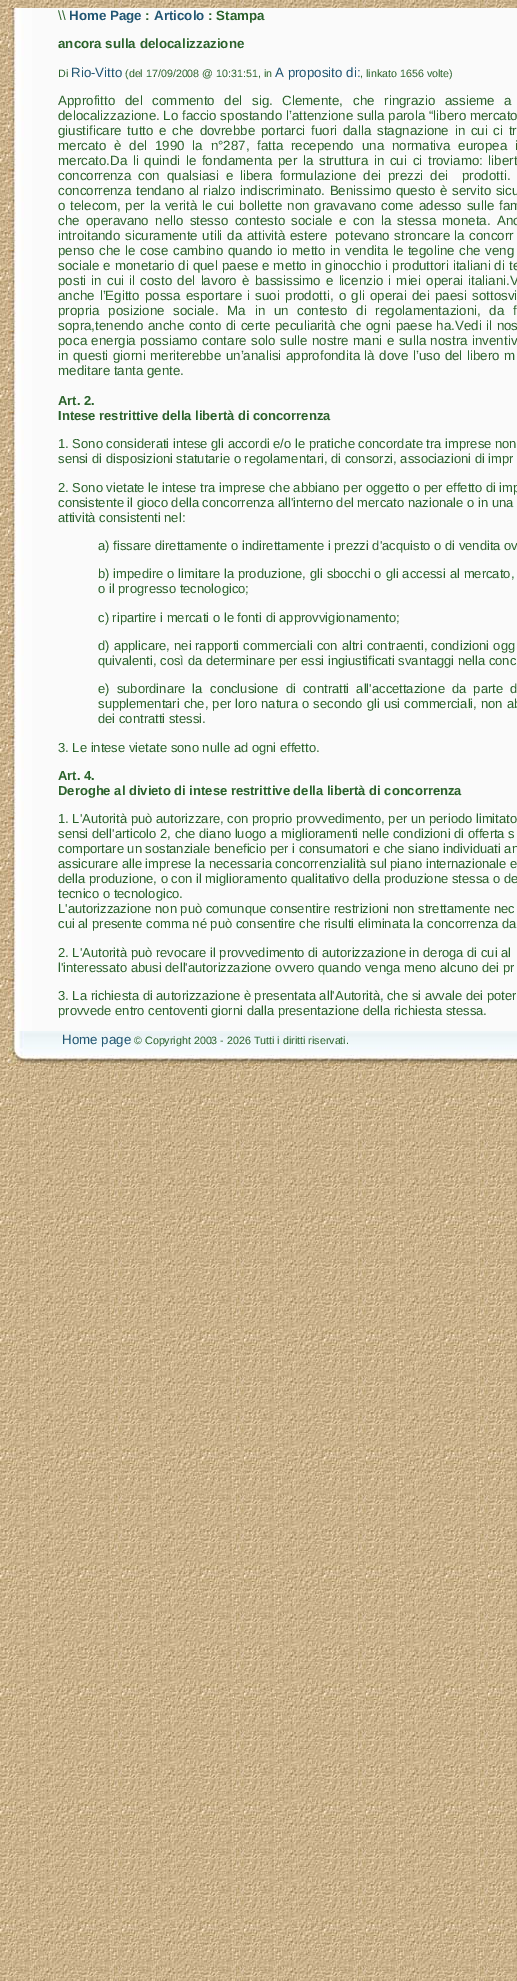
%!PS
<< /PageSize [517 1981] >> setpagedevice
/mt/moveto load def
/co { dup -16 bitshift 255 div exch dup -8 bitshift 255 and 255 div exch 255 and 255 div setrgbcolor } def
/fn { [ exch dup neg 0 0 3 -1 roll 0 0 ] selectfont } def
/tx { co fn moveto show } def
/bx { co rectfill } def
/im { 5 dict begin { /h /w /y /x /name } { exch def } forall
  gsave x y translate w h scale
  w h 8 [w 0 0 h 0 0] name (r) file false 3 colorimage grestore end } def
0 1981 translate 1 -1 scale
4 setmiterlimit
0 0 517 1981 16#FFFFFF bx
(media/1.raw) 0 0 517 1981 im
(media/2.raw) 8 8 509 1023 im
(media/3.raw) 8 1031 509 35 im
(\\\\) 58 20 /LiberationSans-Regular 13.35 16#2B622B tx
(Home Page) 69 20 /LiberationSans-Bold 13.35 16#205571 tx
(:) 145 20 /LiberationSans-Bold 13.35 16#2B622B tx
(Articolo) 154 20 /LiberationSans-Bold 13.35 16#205571 tx
(: Stampa) 208 20 /LiberationSans-Bold 13.35 16#2B622B tx
(ancora sulla delocalizzazione) 58 48 /LiberationSans-Bold 13.35 16#2B622B tx
(Di) 58 77 /LiberationSans-Regular 10.7 16#2B622B tx
(Rio-Vitto) 71 77 /LiberationSans-Regular 13.35 16#205571 tx
(\(del 17/09/2008 @ 10:31:51, in) 125 77 /LiberationSans-Regular 10.7 16#2B622B tx
(A proposito di:) 275 77 /LiberationSans-Regular 13.35 16#205571 tx
(, linkato 1656 volte\)) 360 77 /LiberationSans-Regular 10.7 16#2B622B tx
/LiberationSans-Regular 13.35 fn
58 105 mt 6 0 32 (Approfitto del commento del sig. Clemente, che ringrazio assieme a) widthshow
(delocalizzazione. Lo faccio spostando l’attenzione sulla parola “libero mercato) 58 120 /LiberationSans-Regular 13.35 16#2B622B tx
58 135 mt 2 0 32 (giustificare tutto e che dovrebbe portarci fuori) widthshow
343 135 mt 2 0 32 (dalla stagnazione in cui ci tr) widthshow
58 150 mt 4.1 0 32 (mercato è del 1990 la n°287, fatta recependo una normativa europea i) widthshow
58 165 mt 2 0 32 (mercato.Da li quindi le fondamenta per la struttura in cui ci troviamo: libert) widthshow
58 180 mt 3.25 0 32 (concorrenza con qualsiasi e libera formulazione dei prezzi dei) widthshow
462 180 mt 3.25 0 32 (prodotti.) widthshow
58 195 mt .75 0 32 (concorrenza tendano al rialzo indiscriminato. Benissimo questo è servito sicu) widthshow
58 210 mt 1.1 0 32 (o telecom, per la verità le cui bollette non gravavano come adesso sulle fam) widthshow
58 225 mt 2.6 0 32 (che operavano nello stesso contesto sociale e con la stessa moneta. Anc) widthshow
58 240 mt 1 0 32 (introitando sicuramente utili da attività estere) widthshow
335 240 mt .75 0 32 (potevano stroncare la concorr) widthshow
58 255 mt .9 0 32 (penso che le cose cambino quando io metto in vendita le tegoline che veng) widthshow
58 270 mt .25 0 32 (sociale e monetario di quel paese e metto in ginocchio i produttori italiani di te) widthshow
58 285 mt 1.5 0 32 (posti in cui il costo del lavoro è bassissimo e licenzio i miei operai italiani.V) widthshow
58 300 mt 1.5 0 32 (anche l’Egitto possa esportare i suoi prodotti, o gli operai dei paesi sottosvi) widthshow
58 315 mt 5 0 32 (propria posizione sociale. Ma in un contesto di regolamentazioni, da f) widthshow
58 330 mt .75 0 32 (sopra,tenendo anche conto di certe peculiarità che ogni paese ha.Vedi il nos) widthshow
58 345 mt .75 0 32 (poca energia possiamo contare solo sulle nostre mani e sulla nostra inventiv) widthshow
58 360 mt .75 0 32 (in questi giorni meriterebbe un’analisi approfondita là dove l’uso del libero m) widthshow
(meditare tanta gente.) 58 375 /LiberationSans-Regular 13.35 16#2B622B tx
(Art. 2.) 58 405 /LiberationSans-Bold 13 16#2B622B tx
(Intese restrittive della libertà di concorrenza) 58 420 /LiberationSans-Bold 13 16#2B622B tx
(1. Sono considerati intese gli accordi e/o le pratiche concordate tra imprese non) 58 448 /LiberationSans-Regular 13 16#2B622B tx
(sensi di disposizioni statutarie o regolamentari, di consorzi, associazioni di impr) 58 463 /LiberationSans-Regular 13 16#2B622B tx
(2. Sono vietate le intese tra imprese che abbiano per oggetto o per effetto di imp) 58 492 /LiberationSans-Regular 13 16#2B622B tx
(consistente il gioco della concorrenza all'interno del mercato nazionale o in una) 58 507 /LiberationSans-Regular 13 16#2B622B tx
(attività consistenti nel:) 58 522 /LiberationSans-Regular 13 16#2B622B tx
(a\) fissare direttamente o indirettamente i prezzi d'acquisto o di vendita ov) 98 550 /LiberationSans-Regular 13 16#2B622B tx
98 578 mt .25 0 32 (b\) impedire o limitare la produzione, gli sbocchi o gli accessi al mercato,) widthshow
(o il progresso tecnologico;) 98 593 /LiberationSans-Regular 13 16#2B622B tx
(c\) ripartire i mercati o le fonti di approvvigionamento;) 98 622 /LiberationSans-Regular 13 16#2B622B tx
98 650 mt .5 0 32 (d\) applicare, nei) widthshow
195 650 mt .5 0 32 (rapporti commerciali con altri contraenti, condizioni ogg) widthshow
(quivalenti, così da determinare per essi ingiustificati svantaggi nella conc) 98 665 /LiberationSans-Regular 13 16#2B622B tx
98 693 mt 3.5 0 32 (e\) subordinare la) widthshow
210 693 mt 3.5 0 32 (conclusione di contratti all'accettazione da parte d) widthshow
98 708 mt .5 0 32 (supplementari che, per loro natura o secondo gli usi) widthshow
404 708 mt .5 0 32 (commerciali, non ab) widthshow
(dei contratti stessi.) 98 723 /LiberationSans-Regular 13 16#2B622B tx
(3. Le intese vietate sono nulle ad ogni effetto.) 58 752 /LiberationSans-Regular 13 16#2B622B tx
(Art. 4.) 58 780 /LiberationSans-Bold 13 16#2B622B tx
(Deroghe al divieto di intese restrittive della libertà di concorrenza) 58 795 /LiberationSans-Bold 13 16#2B622B tx
(1. L'Autorità può autorizzare, con proprio provvedimento, per un periodo limitato) 58 823 /LiberationSans-Regular 13 16#2B622B tx
(sensi dell'articolo 2, che diano luogo a miglioramenti nelle condizioni di offerta s) 58 838 /LiberationSans-Regular 13 16#2B622B tx
(comportare un sostanziale beneficio per i consumatori e che siano individuati an) 58 853 /LiberationSans-Regular 13 16#2B622B tx
(assicurare alle imprese la necessaria concorrenzialità sul piano internazionale e) 58 868 /LiberationSans-Regular 13 16#2B622B tx
(della produzione, o con il miglioramento qualitativo della produzione stessa o de) 58 883 /LiberationSans-Regular 13 16#2B622B tx
(tecnico o tecnologico.) 58 898 /LiberationSans-Regular 13 16#2B622B tx
(L'autorizzazione non può comunque consentire restrizioni non strettamente nec) 58 913 /LiberationSans-Regular 13 16#2B622B tx
(cui al presente comma né può consentire che risulti eliminata la concorrenza da) 58 928 /LiberationSans-Regular 13 16#2B622B tx
(2. L'Autorità può revocare il provvedimento di autorizzazione in deroga di cui al) 58 957 /LiberationSans-Regular 13 16#2B622B tx
(l'interessato abusi dell'autorizzazione ovvero quando venga meno alcuno dei pr) 58 972 /LiberationSans-Regular 13 16#2B622B tx
(3. La richiesta di autorizzazione è presentata all'Autorità, che si avvale dei poter) 58 1000 /LiberationSans-Regular 13 16#2B622B tx
(provvede entro centoventi giorni dalla presentazione della richiesta stessa.) 58 1015 /LiberationSans-Regular 13 16#2B622B tx
(Home page) 62 1044 /LiberationSans-Regular 13.35 16#205571 tx
(© Copyright 2003 - 2026 Tutti i diritti riservati.) 134 1044 /LiberationSans-Regular 10.7 16#2B622B tx
showpage
